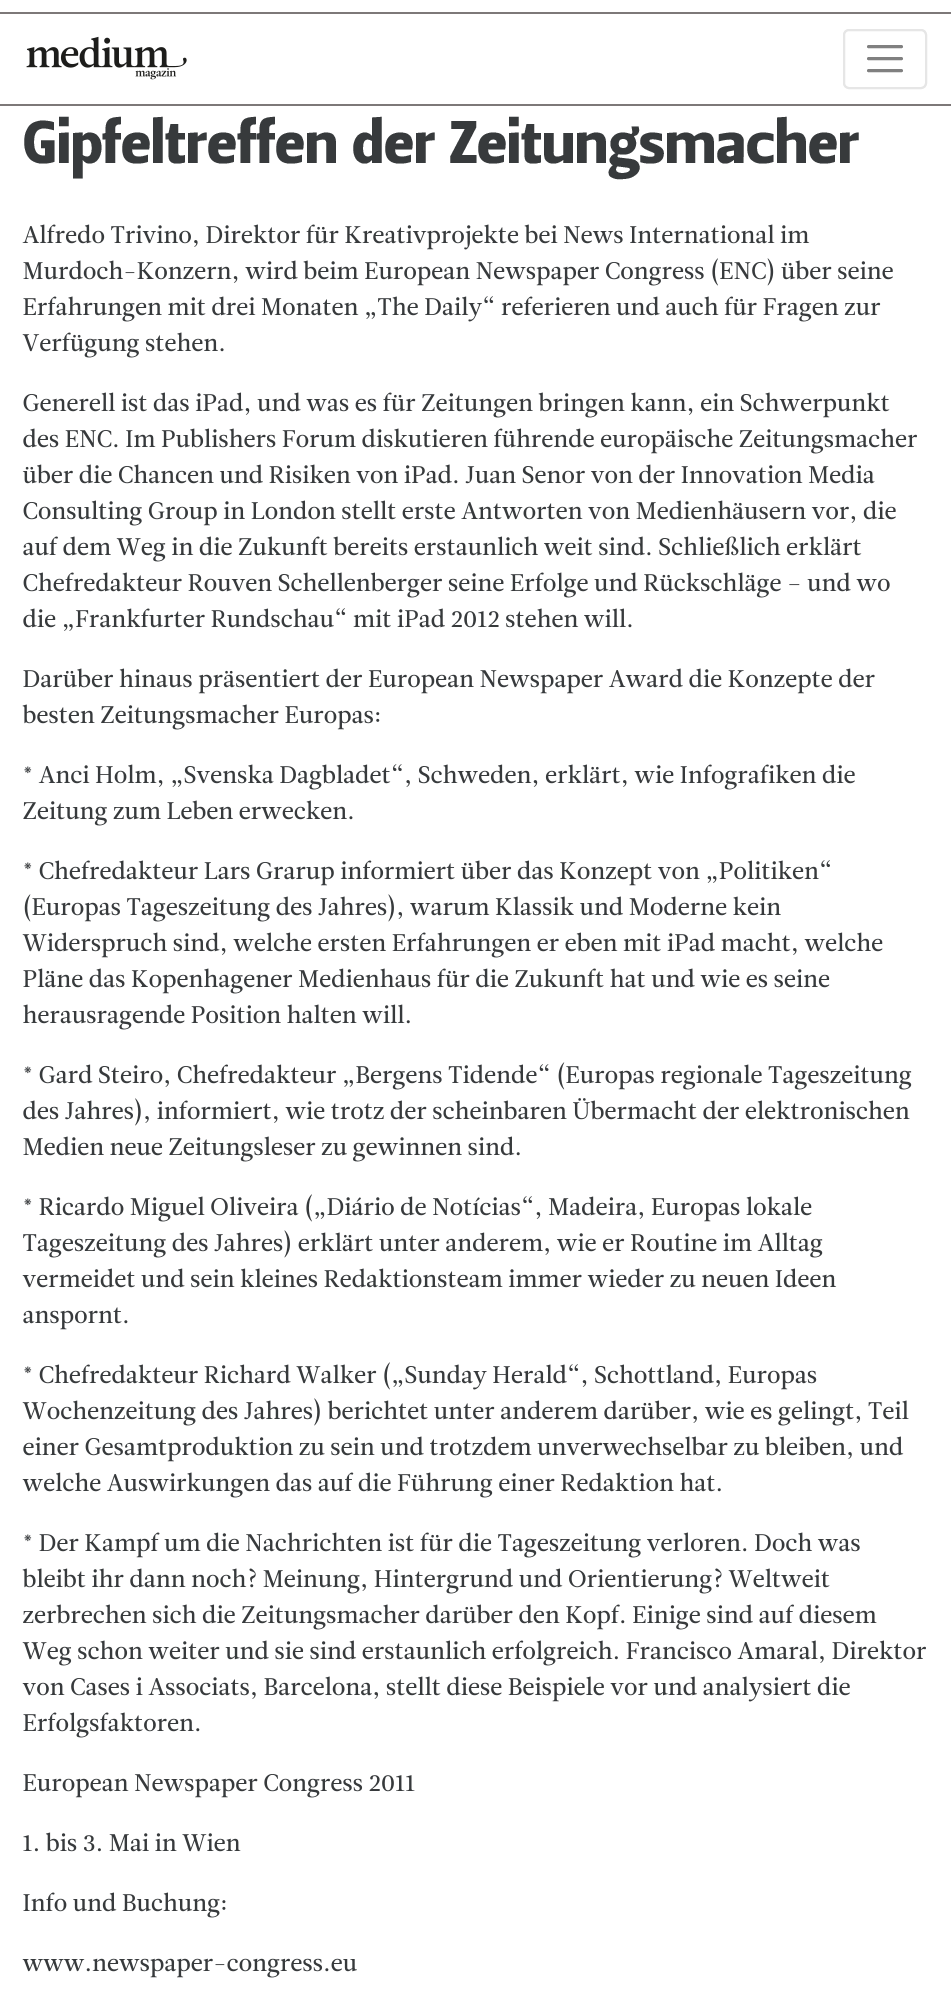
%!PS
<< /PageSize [951 2011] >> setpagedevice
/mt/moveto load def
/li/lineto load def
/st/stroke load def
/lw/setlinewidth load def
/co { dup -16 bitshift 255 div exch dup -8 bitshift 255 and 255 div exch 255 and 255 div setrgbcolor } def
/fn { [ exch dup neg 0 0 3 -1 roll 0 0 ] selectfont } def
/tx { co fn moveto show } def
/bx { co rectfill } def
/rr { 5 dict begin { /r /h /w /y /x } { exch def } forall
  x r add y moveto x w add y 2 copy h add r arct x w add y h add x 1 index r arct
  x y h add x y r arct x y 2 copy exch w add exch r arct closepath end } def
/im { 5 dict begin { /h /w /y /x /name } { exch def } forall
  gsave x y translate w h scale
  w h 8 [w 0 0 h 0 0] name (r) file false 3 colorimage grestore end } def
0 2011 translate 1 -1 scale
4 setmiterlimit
0 0 951 2011 16#FFFFFF bx
0 12 951 2 16#7D7878 bx
0 104 951 2 16#7D7878 bx
(media/1.raw) 26 36 161 44 im
16#E6E6E6 co
2 lw
844 30 82 58 5 rr st
16#808080 co
3 lw
1 setlinecap
868.5 46.5 mt 901.5 46.5 li 868.5 58.5 mt 901.5 58.5 li 868.5 70.5 mt 901.5 70.5 li st
(media/2.raw) 22 224 788 26 im
(media/3.raw) 23 258 870 28 im
(media/4.raw) 23 296 858 26 im
(media/5.raw) 22 332 202 26 im
(media/6.raw) 23 392 867 26 im
(media/7.raw) 23 428 894 26 im
(media/8.raw) 22 464 853 20 im
(media/9.raw) 23 500 873 26 im
(media/10.raw) 23 536 839 26 im
(media/11.raw) 23 572 867 26 im
(media/12.raw) 23 608 609 23 im
(media/13.raw) 23 668 852 26 im
(media/14.raw) 22 704 358 26 im
(media/15.raw) 24 764 831 26 im
(media/16.raw) 23 800 330 26 im
(media/17.raw) 24 860 806 26 im
(media/18.raw) 24 894 757 28 im
(media/19.raw) 22 932 861 26 im
(media/20.raw) 23 968 807 26 im
(media/21.raw) 23 1004 387 26 im
(media/22.raw) 24 1062 888 28 im
(media/23.raw) 23 1098 887 28 im
(media/24.raw) 23 1136 497 26 im
(media/25.raw) 24 1194 788 28 im
(media/26.raw) 23 1230 800 28 im
(media/27.raw) 22 1268 815 20 im
(media/28.raw) 23 1307 105 23 im
(media/29.raw) 24 1362 793 28 im
(media/30.raw) 22 1398 887 28 im
(media/31.raw) 23 1436 881 26 im
(media/32.raw) 22 1472 699 26 im
(media/33.raw) 24 1532 836 26 im
(media/34.raw) 22 1568 808 26 im
(media/35.raw) 23 1604 854 26 im
(media/36.raw) 22 1640 904 26 im
(media/37.raw) 22 1676 828 26 im
(media/38.raw) 23 1712 177 26 im
(media/39.raw) 23 1774 392 24 im
(media/40.raw) 23 1832 218 20 im
(media/41.raw) 23 1892 203 26 im
(media/42.raw) 22 1958 335 20 im
(Gipfeltreffen der Zeitungsmacher) 23 163 /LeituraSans-Regular 60 16#373A3C tx
showpage
